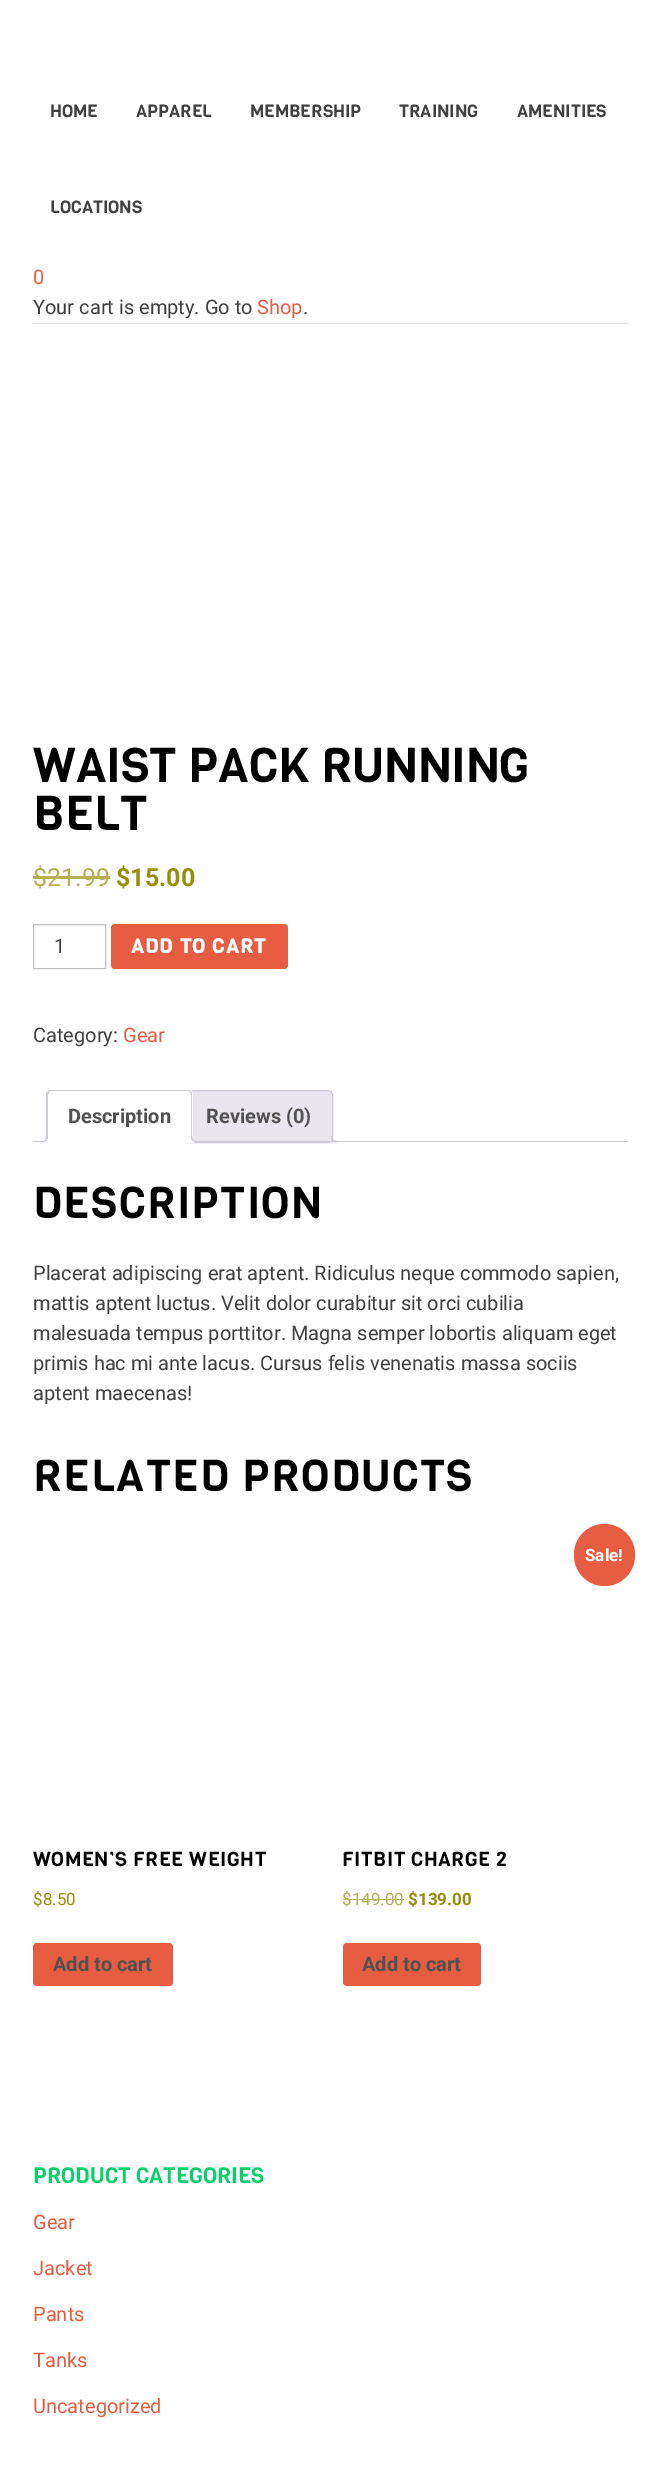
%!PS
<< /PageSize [659 2489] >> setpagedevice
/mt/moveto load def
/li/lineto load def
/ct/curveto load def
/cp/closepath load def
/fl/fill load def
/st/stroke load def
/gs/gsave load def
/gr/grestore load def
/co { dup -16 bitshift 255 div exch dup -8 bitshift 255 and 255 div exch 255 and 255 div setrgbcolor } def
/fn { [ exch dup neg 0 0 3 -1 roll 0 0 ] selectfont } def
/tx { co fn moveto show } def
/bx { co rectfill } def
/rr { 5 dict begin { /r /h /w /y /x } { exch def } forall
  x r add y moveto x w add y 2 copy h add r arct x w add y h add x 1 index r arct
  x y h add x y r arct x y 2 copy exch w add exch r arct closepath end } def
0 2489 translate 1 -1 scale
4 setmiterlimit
0 0 659 2489 16#FFFFFF bx
33 323 595 1 16#E3E3E3 bx
33 876 77 3 16#B5B053 bx
16#BFBFBF co
33.5 924.5 72 44 rectstroke
16#E75D42 co
111 924 177 45 4 rr fl
16#E9E6ED co
190 1090.5 mt 328 1090.5 li 330.5 1090.5 332.5 1092.5 332.5 1095 ct 332.5 1142.5 li 185.5 1142.5 li 185.5 1095 li 185.5 1092.5 187.5 1090.5 190 1090.5 ct cp gs fl gr
16#CFC8D8 co
st
gs
33 1090 595 53 rectclip
16#E9E6ED co
329 1139 mt 329 1143 331 1145 335 1145 ct 335 1142.5 li 333.5 1142 332 1140.5 331.5 1139 ct cp fl
gr
331 1136 mt 337.5 1136 li 337.5 1142.5 li 334.5 1142.5 331 1141 331 1137.5 ct cp 332.5 1136 mt 337.5 1136 li 337.5 1141 li 335 1141 332.5 1140.5 332.5 1137.5 ct cp eofill
33 1141 595 1 16#CFC8D8 bx
16#FFFFFF co
51 1090 mt 188 1090 li 191 1090 193 1092 193 1095 ct 193 1143 li 46 1143 li 46 1095 li 46 1092 48 1090 51 1090 ct cp fl
16#CFC8D8 co
51 1090 mt 50 1090 48 1090 48 1091 ct 49 1092 li 49 1092 50 1091 51 1091 ct 188 1091 li 189 1091 190 1092 190 1092 ct 191 1092 li 190 1091 189 1090 188 1090 ct cp fl
191 1092 mt 192 1092 192 1094 192 1095 ct 192 1142 li 191 1141 li 191 1095 li 190 1092 li cp fl
16#FFFFFF co
192 1142 mt 191 1141 li 48 1141 li 47 1142 li cp fl
16#CFC8D8 co
46 1093 mt 48 1091 li 49 1092 li 48 1095 li 48 1141 li 47 1142 li 46 1142 li cp fl
gs
33 1090 595 53 rectclip
16#FFFFFF co
44 1142.5 mt 44 1145 li 48 1145 50 1143 50 1139 ct 47.5 1139 li 47 1140.5 45.5 1142 44 1142.5 ct cp fl
gr
41 1136 mt 47.5 1136 li 47.5 1140.5 45.5 1142.5 41 1142.5 ct cp 41 1136 mt 46 1136 li 46 1140 45 1141 41 1141 ct cp eofill
gs
33 1090 595 53 rectclip
16#FFFFFF co
189 1139 mt 189 1143 191 1145 195 1145 ct 195 1142.5 li 193.5 1142 192 1140.5 191.5 1139 ct cp fl
gr
191 1136 mt 197.5 1136 li 197.5 1142.5 li 194.5 1142.5 191 1141 191 1137.5 ct cp 192.5 1136 mt 197.5 1136 li 197.5 1141 li 195 1141 192.5 1140.5 192.5 1137.5 ct cp eofill
16#E75D42 co
33 1943 140 43 4 rr fl
574 1524 61 62 30.5 rr fl
343 1899 61 1 16#B5B053 bx
16#E75D42 co
343 1943 138 43 4 rr fl
(HOME) 50 117 /Viga-Regular 17.5 16#404040 tx
(APPAREL) 136 117 /Viga-Regular 17.5 16#404040 tx
(MEMBERSHIP) 250 117 /Viga-Regular 17.5 16#404040 tx
(TRAINING) 399 117 /Viga-Regular 17.5 16#404040 tx
(AMENITIES) 517 117 /Viga-Regular 17.5 16#404040 tx
(LOCATIONS) 50 213 /Viga-Regular 17.5 16#404040 tx
(0) 33 284 /Roboto-Regular 20 16#E75D42 tx
(Your cart is empty. Go to) 33 314 /Roboto-Regular 20 16#404040 tx
(Shop) 257 314 /Roboto-Regular 20 16#E75D42 tx
(.) 303 314 /Roboto-Regular 20 16#404040 tx
(WAIST PACK RUNNING) 33 782 /Viga-Regular 48 16#000000 tx
(BELT) 33 830 /Viga-Regular 48 16#000000 tx
($21.99) 33 886 /Roboto-Regular 25 16#B5B053 tx
($15.00) 116 886 /Roboto-Bold 25 16#958E09 tx
(1) 54 953 /Roboto-Regular 20 16#404040 tx
/Viga-Bold 20 fn
16#FFFFFF co
131 953 mt 1.25 0 (ADD TO CART) ashow
(Category:) 33 1042 /Roboto-Regular 20 16#404040 tx
(Gear) 123 1042 /Roboto-Regular 20 16#E75D42 tx
(Description) 68 1123 /Roboto-Bold 20 16#515151 tx
(Reviews \(0\)) 206 1123 /Roboto-Bold 20 16#515151 tx
/Viga-Regular 44 fn
16#000000 co
33 1218 mt 1.3 0 (DESCRIPTION) ashow
(Placerat adipiscing erat aptent. Ridiculus neque commodo sapien,) 33 1280 /Roboto-Regular 20 16#404040 tx
(mattis aptent luctus. Velit dolor curabitur sit orci cubilia) 33 1310 /Roboto-Regular 20 16#404040 tx
(malesuada tempus porttitor. Magna semper lobortis aliquam eget) 33 1340 /Roboto-Regular 20 16#404040 tx
(primis hac mi ante lacus. Cursus felis venenatis massa sociis) 33 1370 /Roboto-Regular 20 16#404040 tx
(aptent maecenas!) 33 1400 /Roboto-Regular 20 16#404040 tx
/Viga-Regular 44 fn
16#000000 co
33 1491 mt 1.3 0 (RELATED PRODUCTS) ashow
/Viga-Regular 20 fn
33 1866 mt .6 0 (WOMEN’S FREE WEIGHT) ashow
($8.50) 33 1905 /Roboto-Regular 17 16#958E09 tx
(Add to cart) 53 1971 /Roboto-Bold 20 16#515151 tx
(Sale!) 585 1561 /Roboto-Bold 17 16#FFFFFF tx
/Viga-Regular 20 fn
16#000000 co
342 1866 mt .6 0 (FITBIT CHARGE 2) ashow
($149.00) 342 1905 /Roboto-Regular 17 16#B5B053 tx
($139.00) 408 1905 /Roboto-Bold 17 16#958E09 tx
(Add to cart) 362 1971 /Roboto-Bold 20 16#515151 tx
(PRODUCT CATEGORIES) 33 2183 /Viga-Regular 22 16#0BCF6C tx
(Gear) 33 2229 /Roboto-Regular 20 16#E75D42 tx
(Jacket) 33 2275 /Roboto-Regular 20 16#E75D42 tx
(Pants) 33 2321 /Roboto-Regular 20 16#E75D42 tx
(Tanks) 33 2367 /Roboto-Regular 20 16#E75D42 tx
(Uncategorized) 33 2413 /Roboto-Regular 20 16#E75D42 tx
showpage
